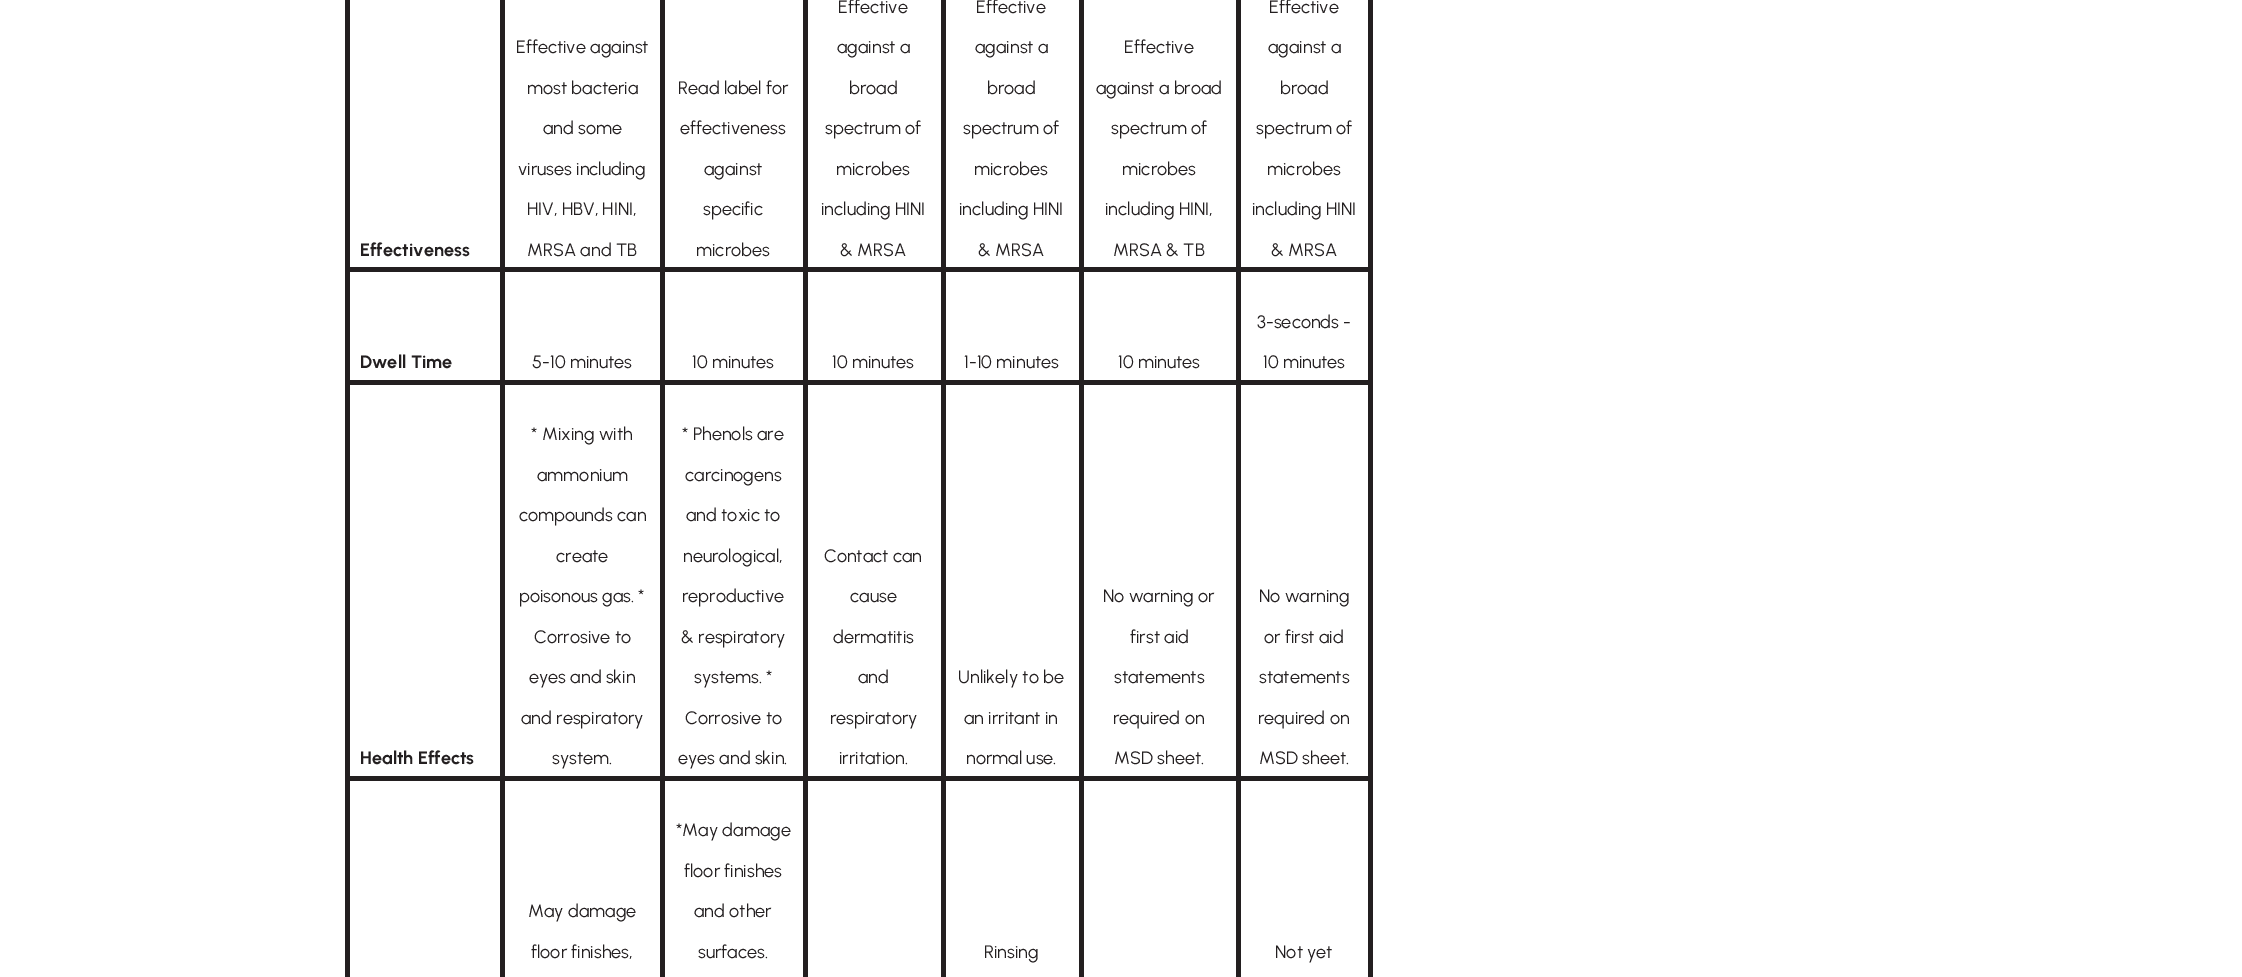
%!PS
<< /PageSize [2242 977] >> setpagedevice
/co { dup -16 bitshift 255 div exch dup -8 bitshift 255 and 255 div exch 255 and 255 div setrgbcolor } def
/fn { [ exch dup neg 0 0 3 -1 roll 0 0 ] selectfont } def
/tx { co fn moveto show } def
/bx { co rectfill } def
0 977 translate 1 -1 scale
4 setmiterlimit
0 0 2242 977 16#FFFFFF bx
500 0 5 384 16#231F20 bx
345 267 159 5 16#231F20 bx
345 0 5 272 16#231F20 bx
660 0 5 384 16#231F20 bx
504 267 161 5 16#231F20 bx
803 0 5 384 16#231F20 bx
665 267 142 5 16#231F20 bx
941 0 5 384 16#231F20 bx
807 267 138 5 16#231F20 bx
1079 0 5 384 16#231F20 bx
945 267 138 5 16#231F20 bx
1236 0 5 384 16#231F20 bx
1083 267 158 5 16#231F20 bx
1368 0 5 384 16#231F20 bx
1241 267 132 5 16#231F20 bx
345 380 1028 5 16#231F20 bx
345 272 5 112 16#231F20 bx
500 384 5 396 16#231F20 bx
345 776 159 5 16#231F20 bx
345 384 5 593 16#231F20 bx
660 384 5 396 16#231F20 bx
504 776 161 5 16#231F20 bx
803 384 5 396 16#231F20 bx
665 776 142 5 16#231F20 bx
941 384 5 396 16#231F20 bx
807 776 138 5 16#231F20 bx
1079 384 5 396 16#231F20 bx
945 776 138 5 16#231F20 bx
1236 384 5 396 16#231F20 bx
1083 776 158 5 16#231F20 bx
1368 384 5 396 16#231F20 bx
1241 776 132 5 16#231F20 bx
500 780 5 197 16#231F20 bx
660 780 5 197 16#231F20 bx
803 780 5 197 16#231F20 bx
941 780 5 197 16#231F20 bx
1079 780 5 197 16#231F20 bx
1236 780 5 197 16#231F20 bx
1368 780 5 197 16#231F20 bx
(Effectiveness) 360 256 /Urbanist-Bold 18 16#231F20 tx
(Effective against) 516 53 /Urbanist-Regular 18 16#231F20 tx
(most bacteria) 527 94 /Urbanist-Regular 18 16#231F20 tx
(and some) 543 134 /Urbanist-Regular 18 16#231F20 tx
(viruses including) 518 175 /Urbanist-Regular 18 16#231F20 tx
(HIV, HBV, HINI,) 527 215 /Urbanist-Regular 18 16#231F20 tx
(MRSA and TB) 527 256 /Urbanist-Regular 18 16#231F20 tx
(Read label for) 678 94 /Urbanist-Regular 18 16#231F20 tx
(effectiveness) 680 134 /Urbanist-Regular 18 16#231F20 tx
(against) 704 175 /Urbanist-Regular 18 16#231F20 tx
(specific) 703 215 /Urbanist-Regular 18 16#231F20 tx
(microbes) 696 256 /Urbanist-Regular 18 16#231F20 tx
(Effective) 838 13 /Urbanist-Regular 18 16#231F20 tx
(against a) 837 53 /Urbanist-Regular 18 16#231F20 tx
(broad) 849 94 /Urbanist-Regular 18 16#231F20 tx
(spectrum of) 825 134 /Urbanist-Regular 18 16#231F20 tx
(microbes) 836 175 /Urbanist-Regular 18 16#231F20 tx
(including HINI) 821 215 /Urbanist-Regular 18 16#231F20 tx
(& MRSA) 840 256 /Urbanist-Regular 18 16#231F20 tx
(Effective) 976 13 /Urbanist-Regular 18 16#231F20 tx
(against a) 975 53 /Urbanist-Regular 18 16#231F20 tx
(broad) 987 94 /Urbanist-Regular 18 16#231F20 tx
(spectrum of) 963 134 /Urbanist-Regular 18 16#231F20 tx
(microbes) 974 175 /Urbanist-Regular 18 16#231F20 tx
(including HINI) 959 215 /Urbanist-Regular 18 16#231F20 tx
(& MRSA) 978 256 /Urbanist-Regular 18 16#231F20 tx
(Effective) 1124 53 /Urbanist-Regular 18 16#231F20 tx
(against a broad) 1096 94 /Urbanist-Regular 18 16#231F20 tx
(spectrum of) 1111 134 /Urbanist-Regular 18 16#231F20 tx
(microbes) 1122 175 /Urbanist-Regular 18 16#231F20 tx
(including HINI,) 1105 215 /Urbanist-Regular 18 16#231F20 tx
(MRSA & TB) 1113 256 /Urbanist-Regular 18 16#231F20 tx
(Effective) 1269 13 /Urbanist-Regular 18 16#231F20 tx
(against a) 1268 53 /Urbanist-Regular 18 16#231F20 tx
(broad) 1280 94 /Urbanist-Regular 18 16#231F20 tx
(spectrum of) 1256 134 /Urbanist-Regular 18 16#231F20 tx
(microbes) 1267 175 /Urbanist-Regular 18 16#231F20 tx
(including HINI) 1252 215 /Urbanist-Regular 18 16#231F20 tx
(& MRSA) 1271 256 /Urbanist-Regular 18 16#231F20 tx
(Dwell Time) 360 368 /Urbanist-Bold 18 16#231F20 tx
(5-10 minutes) 532 368 /Urbanist-Regular 18 16#231F20 tx
(10 minutes) 692 368 /Urbanist-Regular 18 16#231F20 tx
(10 minutes) 832 368 /Urbanist-Regular 18 16#231F20 tx
(1-10 minutes) 964 368 /Urbanist-Regular 18 16#231F20 tx
(10 minutes) 1118 368 /Urbanist-Regular 18 16#231F20 tx
(3-seconds -) 1257 328 /Urbanist-Regular 18 16#231F20 tx
(10 minutes) 1263 368 /Urbanist-Regular 18 16#231F20 tx
(Health Effects) 360 764 /Urbanist-Bold 18 16#231F20 tx
(* Mixing with) 531 440 /Urbanist-Regular 18 16#231F20 tx
(ammonium) 537 481 /Urbanist-Regular 18 16#231F20 tx
(compounds can) 519 521 /Urbanist-Regular 18 16#231F20 tx
(create) 556 562 /Urbanist-Regular 18 16#231F20 tx
(poisonous gas. *) 519 602 /Urbanist-Regular 18 16#231F20 tx
(Corrosive to) 534 643 /Urbanist-Regular 18 16#231F20 tx
(eyes and skin) 529 683 /Urbanist-Regular 18 16#231F20 tx
(and respiratory) 521 724 /Urbanist-Regular 18 16#231F20 tx
(system.) 552 764 /Urbanist-Regular 18 16#231F20 tx
(* Phenols are) 682 440 /Urbanist-Regular 18 16#231F20 tx
(carcinogens) 685 481 /Urbanist-Regular 18 16#231F20 tx
(and toxic to) 686 521 /Urbanist-Regular 18 16#231F20 tx
(neurological,) 683 562 /Urbanist-Regular 18 16#231F20 tx
(reproductive) 682 602 /Urbanist-Regular 18 16#231F20 tx
(& respiratory) 681 643 /Urbanist-Regular 18 16#231F20 tx
(systems. *) 694 683 /Urbanist-Regular 18 16#231F20 tx
(Corrosive to) 685 724 /Urbanist-Regular 18 16#231F20 tx
(eyes and skin.) 678 764 /Urbanist-Regular 18 16#231F20 tx
(Contact can) 824 562 /Urbanist-Regular 18 16#231F20 tx
(cause) 850 602 /Urbanist-Regular 18 16#231F20 tx
(dermatitis) 833 643 /Urbanist-Regular 18 16#231F20 tx
(and) 858 683 /Urbanist-Regular 18 16#231F20 tx
(respiratory) 830 724 /Urbanist-Regular 18 16#231F20 tx
(irritation.) 839 764 /Urbanist-Regular 18 16#231F20 tx
(Unlikely to be) 958 683 /Urbanist-Regular 18 16#231F20 tx
(an irritant in) 964 724 /Urbanist-Regular 18 16#231F20 tx
(normal use.) 966 764 /Urbanist-Regular 18 16#231F20 tx
(No warning or) 1103 602 /Urbanist-Regular 18 16#231F20 tx
(first aid) 1130 643 /Urbanist-Regular 18 16#231F20 tx
(statements) 1114 683 /Urbanist-Regular 18 16#231F20 tx
(required on) 1113 724 /Urbanist-Regular 18 16#231F20 tx
(MSD sheet.) 1114 764 /Urbanist-Regular 18 16#231F20 tx
(No warning) 1259 602 /Urbanist-Regular 18 16#231F20 tx
(or first aid) 1264 643 /Urbanist-Regular 18 16#231F20 tx
(statements) 1259 683 /Urbanist-Regular 18 16#231F20 tx
(required on) 1258 724 /Urbanist-Regular 18 16#231F20 tx
(MSD sheet.) 1259 764 /Urbanist-Regular 18 16#231F20 tx
(May damage) 528 917 /Urbanist-Regular 18 16#231F20 tx
(floor finishes,) 531 958 /Urbanist-Regular 18 16#231F20 tx
(*May damage) 676 836 /Urbanist-Regular 18 16#231F20 tx
(floor finishes) 684 877 /Urbanist-Regular 18 16#231F20 tx
(and other) 694 917 /Urbanist-Regular 18 16#231F20 tx
(surfaces.) 698 958 /Urbanist-Regular 18 16#231F20 tx
(Rinsing) 984 958 /Urbanist-Regular 18 16#231F20 tx
(Not yet) 1275 958 /Urbanist-Regular 18 16#231F20 tx
showpage
